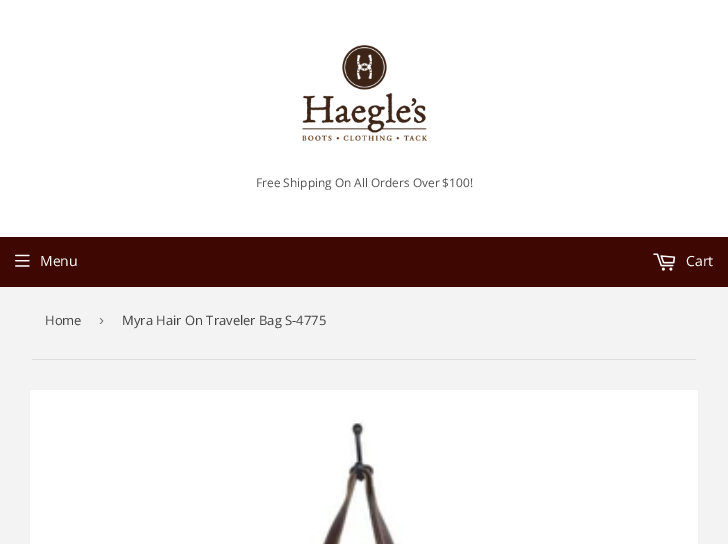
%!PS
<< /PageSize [728 544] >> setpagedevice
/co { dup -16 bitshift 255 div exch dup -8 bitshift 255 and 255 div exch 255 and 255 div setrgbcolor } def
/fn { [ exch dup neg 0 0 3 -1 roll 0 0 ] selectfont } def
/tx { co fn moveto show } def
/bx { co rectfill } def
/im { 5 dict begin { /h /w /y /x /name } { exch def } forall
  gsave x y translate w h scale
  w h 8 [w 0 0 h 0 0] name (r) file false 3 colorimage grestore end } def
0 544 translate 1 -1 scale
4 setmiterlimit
0 0 728 544 16#F3F3F3 bx
0 0 728 237 16#FFFFFF bx
(media/1.raw) 302 45 125 96 im
0 237 728 50 16#3F0702 bx
(media/2.raw) 15 254 15 13 im
(media/3.raw) 653 253 23 18 im
32 359 664 1 16#DEDEDE bx
(media/4.raw) 30 390 668 154 im
(Free Shipping On All Orders Over $100!) 256 187 /OpenSans-Regular 11.9 16#545454 tx
(Menu) 40 266 /OpenSans-Regular 14 16#FFFFFF tx
(Cart) 686 266 /OpenSans-Regular 14 16#FFFFFF tx
(Home) 45 325 /OpenSans-Regular 13 16#424242 tx
(›) 99 325 /LiberationSans-Regular 15 16#767676 tx
(Myra Hair On Traveler Bag S-4775) 122 325 /OpenSans-Regular 13 16#424242 tx
showpage
